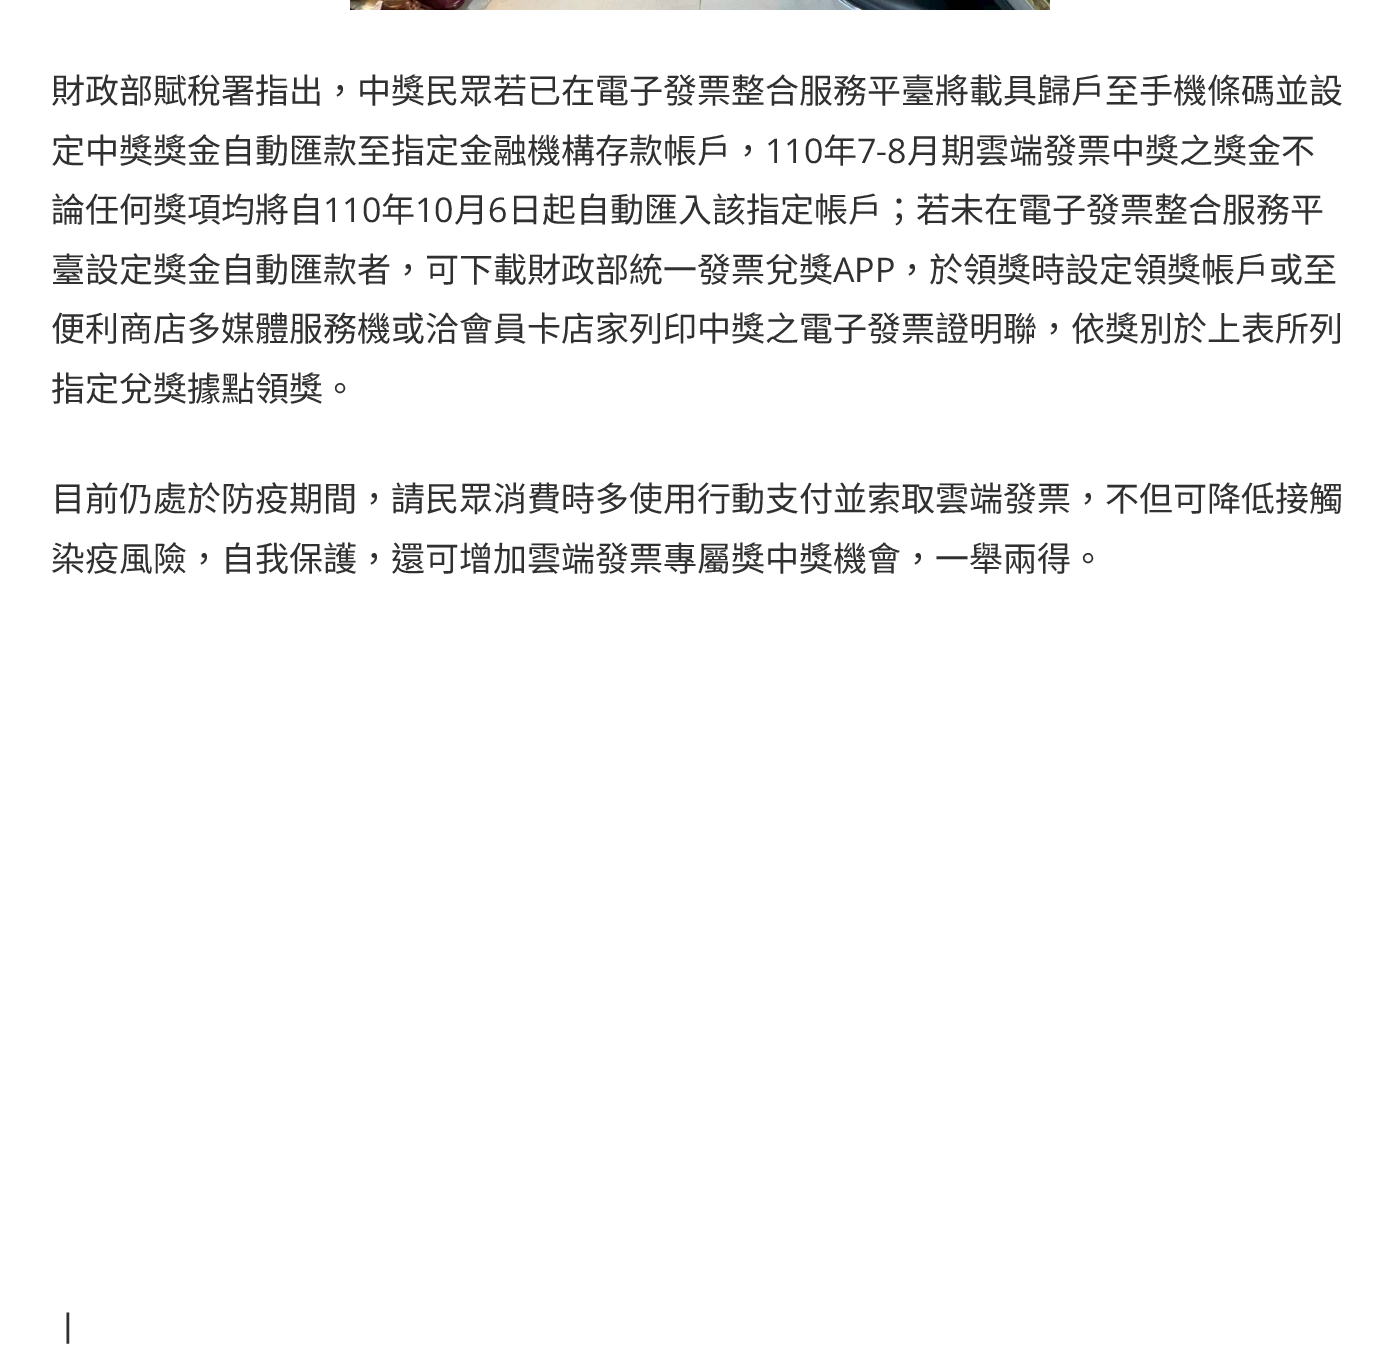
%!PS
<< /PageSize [1399 1358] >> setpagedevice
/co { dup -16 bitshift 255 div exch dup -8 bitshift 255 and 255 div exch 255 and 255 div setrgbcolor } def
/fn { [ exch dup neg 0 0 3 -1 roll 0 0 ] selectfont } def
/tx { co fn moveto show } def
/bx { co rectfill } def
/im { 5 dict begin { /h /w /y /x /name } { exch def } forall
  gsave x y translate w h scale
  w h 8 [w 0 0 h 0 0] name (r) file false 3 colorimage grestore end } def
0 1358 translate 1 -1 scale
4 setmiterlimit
0 0 1399 1358 16#FFFFFF bx
(media/1.raw) 350 0 700 10 im
(財政部賦稅署指出，中獎民眾若已在電子發票整合服務平臺將載具歸戶至手機條碼並設) 51 103 /NotoSansCJKTC-Regular 34 16#303030 tx
(定中獎獎金自動匯款至指定金融機構存款帳戶，) 51 163 /NotoSansCJKTC-Regular 34 16#303030 tx
(110) 765 163 /OpenSans-Regular 34 16#303030 tx
(年) 823 163 /NotoSansCJKTC-Regular 34 16#303030 tx
(7-8) 857 163 /OpenSans-Regular 34 16#303030 tx
(月期雲端發票中獎之獎金不) 907 163 /NotoSansCJKTC-Regular 34 16#303030 tx
(論任何獎項均將自) 51 222 /NotoSansCJKTC-Regular 34 16#303030 tx
(110) 323 222 /OpenSans-Regular 34 16#303030 tx
(年) 381 222 /NotoSansCJKTC-Regular 34 16#303030 tx
(10) 415 222 /OpenSans-Regular 34 16#303030 tx
(月) 454 222 /NotoSansCJKTC-Regular 34 16#303030 tx
(6) 488 222 /OpenSans-Regular 34 16#303030 tx
(日起自動匯入該指定帳戶；若未在電子發票整合服務平) 508 222 /NotoSansCJKTC-Regular 34 16#303030 tx
(臺設定獎金自動匯款者，可下載財政部統一發票兌獎) 51 282 /NotoSansCJKTC-Regular 34 16#303030 tx
(APP) 833 282 /OpenSans-Regular 34 16#303030 tx
(，於領獎時設定領獎帳戶或至) 895 282 /NotoSansCJKTC-Regular 34 16#303030 tx
(便利商店多媒體服務機或洽會員卡店家列印中獎之電子發票證明聯，依獎別於上表所列) 51 341 /NotoSansCJKTC-Regular 34 16#303030 tx
(指定兌獎據點領獎。) 51 401 /NotoSansCJKTC-Regular 34 16#303030 tx
(目前仍處於防疫期間，請民眾消費時多使用行動支付並索取雲端發票，不但可降低接觸) 51 511 /NotoSansCJKTC-Regular 34 16#303030 tx
(染疫風險，自我保護，還可增加雲端發票專屬獎中獎機會，一舉兩得。) 51 571 /NotoSansCJKTC-Regular 34 16#303030 tx
(丨) 51 1341 /NotoSansCJKTC-Regular 34 16#303030 tx
showpage
